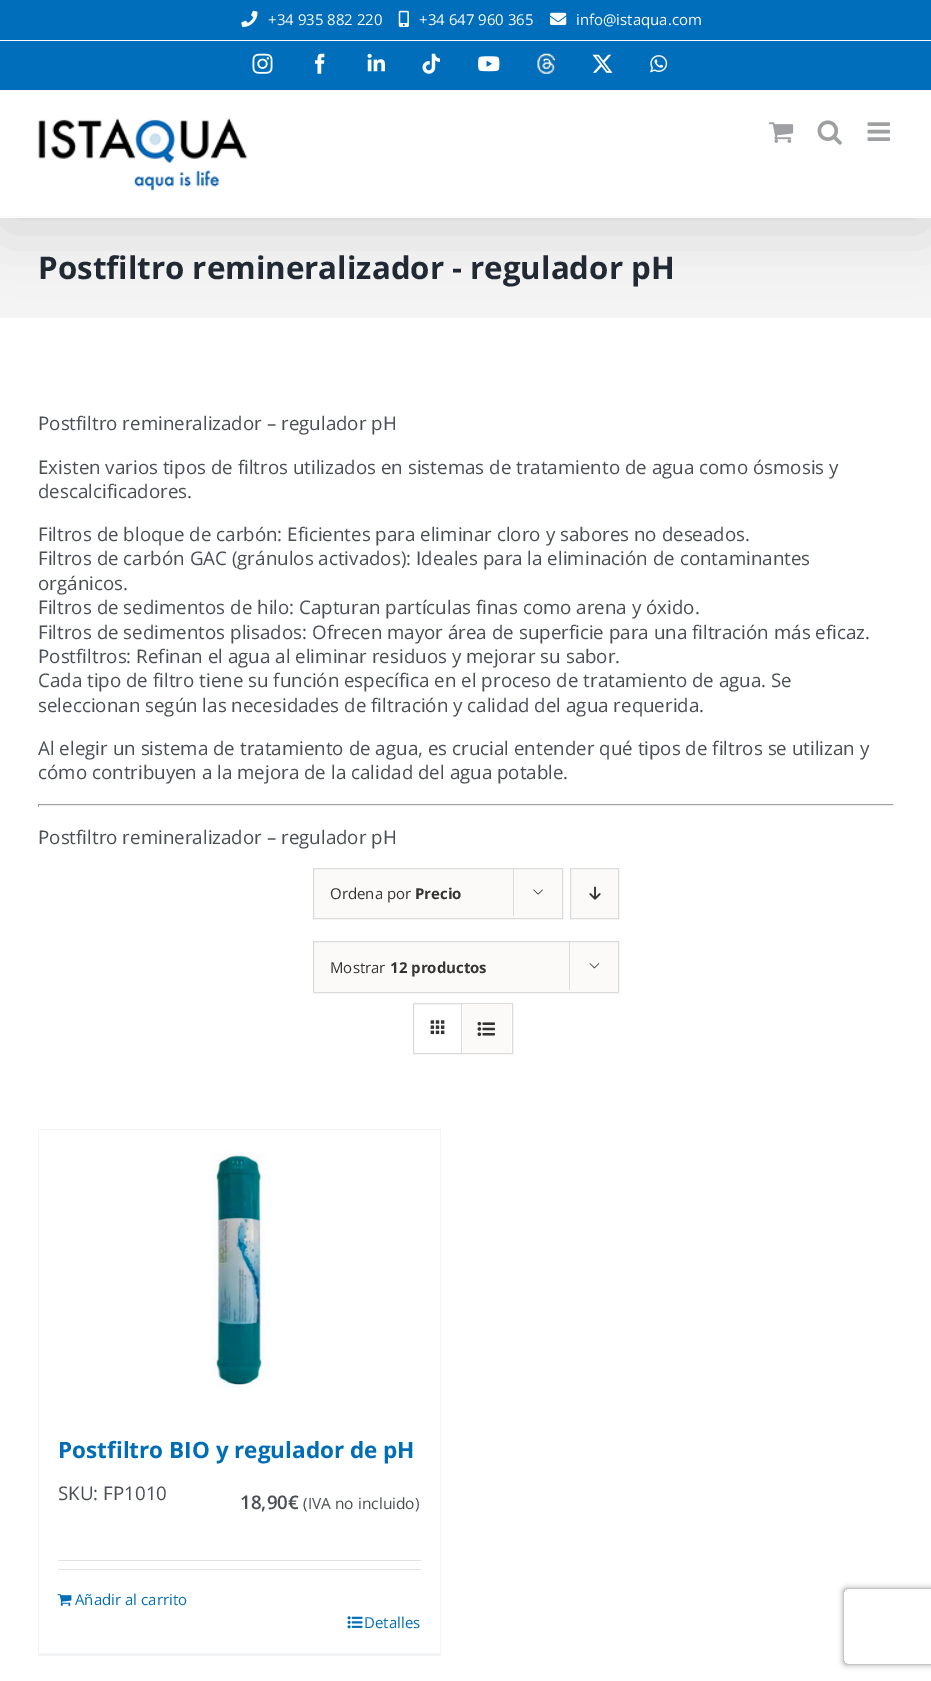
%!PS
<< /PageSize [931 1681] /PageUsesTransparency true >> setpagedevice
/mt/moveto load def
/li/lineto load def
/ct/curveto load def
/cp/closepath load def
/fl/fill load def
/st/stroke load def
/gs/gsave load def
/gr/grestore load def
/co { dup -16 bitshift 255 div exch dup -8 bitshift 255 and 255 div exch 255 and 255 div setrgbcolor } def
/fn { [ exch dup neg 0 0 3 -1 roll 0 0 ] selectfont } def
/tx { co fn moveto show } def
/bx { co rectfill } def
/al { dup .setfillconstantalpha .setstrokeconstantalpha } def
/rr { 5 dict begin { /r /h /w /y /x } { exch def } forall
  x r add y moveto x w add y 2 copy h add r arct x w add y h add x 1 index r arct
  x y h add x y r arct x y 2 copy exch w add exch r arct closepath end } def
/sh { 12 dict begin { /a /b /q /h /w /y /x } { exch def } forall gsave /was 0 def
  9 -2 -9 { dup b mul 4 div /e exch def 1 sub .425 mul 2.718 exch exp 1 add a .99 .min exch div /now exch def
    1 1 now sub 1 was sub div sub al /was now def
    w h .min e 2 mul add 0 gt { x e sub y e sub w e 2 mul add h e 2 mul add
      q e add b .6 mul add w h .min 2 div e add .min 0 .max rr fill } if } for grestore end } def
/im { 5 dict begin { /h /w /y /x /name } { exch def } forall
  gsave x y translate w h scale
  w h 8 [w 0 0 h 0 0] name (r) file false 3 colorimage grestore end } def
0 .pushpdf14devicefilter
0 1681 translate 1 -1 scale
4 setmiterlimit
0 0 931 1681 16#FFFFFF bx
0 218 931 100 16#F4F4F4 bx
16#000000 co
3 15 926 213 0 31 .14 sh
0 0 931 90 16#006EBA bx
0 90 931 1 16#FAFAFA bx
0 40 931 1 16#FAFAFA bx
(media/1.raw) 241 10 17 17 im
(media/2.raw) 398 10 11 17 im
(media/3.raw) 550 12 17 13 im
(media/4.raw) 252 53 21 21 im
(media/5.raw) 315 53 10 21 im
(media/6.raw) 367 53 18 19 im
(media/7.raw) 422 53 18 21 im
(media/8.raw) 478 56 22 16 im
(media/9.raw) 537 53 18 21 im
(media/10.raw) 592 54 21 19 im
(media/11.raw) 650 55 18 18 im
0 91 931 127 16#FFFFFF bx
0 216 931 1 16#FAFAFA bx
(media/12.raw) 38 118 210 73 im
(media/13.raw) 768 122 26 21 im
(media/14.raw) 817 120 25 25 im
(media/15.raw) 867 122 23 19 im
38 804 856 1 16#9F9F9F bx
893 804 1 3 16#EEEEEE bx
38 805 856 1 16#EEEEEE bx
38 804 1 3 16#9F9F9F bx
16#FBFAF9 co
313.5 868.5 mt 562.5 868.5 li 562.5 918.5 li 313.5 918.5 li cp gs fl gr
16#DBDBDB co
st
513 868 1 48 16#DBDBDB bx
(media/16.raw) 533 889 10 6 im
16#FBFAF9 co
570.5 868.5 mt 618.5 868.5 li 618.5 918.5 li 570.5 918.5 li cp gs fl gr
16#DBDBDB co
st
(media/17.raw) 589 886 12 14 im
16#FBFAF9 co
313.5 941.5 mt 618.5 941.5 li 618.5 992.5 li 313.5 992.5 li cp gs fl gr
16#DBDBDB co
st
569 941 1 49 16#DBDBDB bx
(media/18.raw) 589 963 11 6 im
413.5 1003.5 99 50 rectstroke
461 1004 1 49 16#DBDBDB bx
(media/19.raw) 430 1020 15 15 im
463 1004 48 49 16#FBFAF9 bx
(media/20.raw) 477 1021 18 16 im
38 1129 403 1 16#F2F3F5 bx
440 1129 1 526 16#F2F3F5 bx
38 1653 403 3 16#F2F3F5 bx
38 1129 1 526 16#F2F3F5 bx
(media/21.raw) 39 1130 401 281 im
58 1560 363 1 16#E2E2E2 bx
58 1569 363 1 16#E2E2E2 bx
(media/22.raw) 57 1594 15 12 im
(media/23.raw) 347 1616 16 13 im
gs
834 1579 mt 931 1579 li 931 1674 li 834 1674 li cp 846.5 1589 mt 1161.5 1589 li 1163 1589 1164 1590 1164 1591.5 ct 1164 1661.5 li 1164 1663 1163 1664 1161.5 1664 ct 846.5 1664 li 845 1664 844 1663 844 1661.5 ct 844 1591.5 li 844 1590 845 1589 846.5 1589 ct cp eoclip newpath
16#808080 co
844 1589 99 75 2.5 3 1 sh
gr
(+34 935 882 220) 268 25 /OpenSans-Regular 15 16#FFFFFF tx
(+34 647 960 365) 419 25 /OpenSans-Regular 15 16#FFFFFF tx
(info@istaqua.com) 576 25 /OpenSans-Regular 15 16#FFFFFF tx
(Postfiltro remineralizador - regulador pH) 38 279 /OpenSans-Bold 31.25 16#212934 tx
(Postfiltro remineralizador – regulador pH) 38 430 /OpenSans-Regular 18.75 16#4A4E57 tx
(Existen varios tipos de filtros utilizados en sistemas de tratamiento de agua como ósmosis y) 38 474 /OpenSans-Regular 18.75 16#4A4E57 tx
(descalcificadores.) 38 498 /OpenSans-Regular 18.75 16#4A4E57 tx
(Filtros de bloque de carbón: Eficientes para eliminar cloro y sabores no deseados.) 38 541 /OpenSans-Regular 18.75 16#4A4E57 tx
(Filtros de carbón GAC \(gránulos activados\): Ideales para la eliminación de contaminantes) 38 565 /OpenSans-Regular 18.75 16#4A4E57 tx
(orgánicos.) 38 590 /OpenSans-Regular 18.75 16#4A4E57 tx
(Filtros de sedimentos de hilo: Capturan partículas finas como arena y óxido.) 38 614 /OpenSans-Regular 18.75 16#4A4E57 tx
(Filtros de sedimentos plisados: Ofrecen mayor área de superficie para una filtración más eficaz.) 38 639 /OpenSans-Regular 18.75 16#4A4E57 tx
(Postfiltros: Refinan el agua al eliminar residuos y mejorar su sabor.) 38 663 /OpenSans-Regular 18.75 16#4A4E57 tx
(Cada tipo de filtro tiene su función específica en el proceso de tratamiento de agua. Se) 38 687 /OpenSans-Regular 18.75 16#4A4E57 tx
(seleccionan según las necesidades de filtración y calidad del agua requerida.) 38 712 /OpenSans-Regular 18.75 16#4A4E57 tx
(Al elegir un sistema de tratamiento de agua, es crucial entender qué tipos de filtros se utilizan y) 38 755 /OpenSans-Regular 18.75 16#4A4E57 tx
(cómo contribuyen a la mejora de la calidad del agua potable.) 38 779 /OpenSans-Regular 18.75 16#4A4E57 tx
(Postfiltro remineralizador – regulador pH) 38 844 /OpenSans-Regular 18.75 16#4A4E57 tx
(Ordena por) 330 899 /OpenSans-Regular 15 16#333333 tx
(Precio) 415 899 /OpenSans-Bold 15 16#333333 tx
(Mostrar) 330 973 /OpenSans-Regular 15 16#333333 tx
(12 productos) 390 973 /OpenSans-Bold 15 16#333333 tx
(Postfiltro BIO y regulador de pH) 58 1458 /OpenSans-Bold 22.5 16#006DB7 tx
(SKU: FP1010) 58 1500 /OpenSans-Regular 18.75 16#4A4E57 tx
(18,90€) 240 1509 /OpenSans-SemiBold 18.75 16#4A4E57 tx
(\(IVA no incluido\)) 303 1509 /OpenSans-Regular 15.5 16#4A4E57 tx
(Añadir al carrito) 75 1605 /OpenSans-Regular 15 16#006DB7 tx
(Detalles) 364 1628 /OpenSans-Regular 15 16#006DB7 tx
.poppdf14devicefilter showpage
